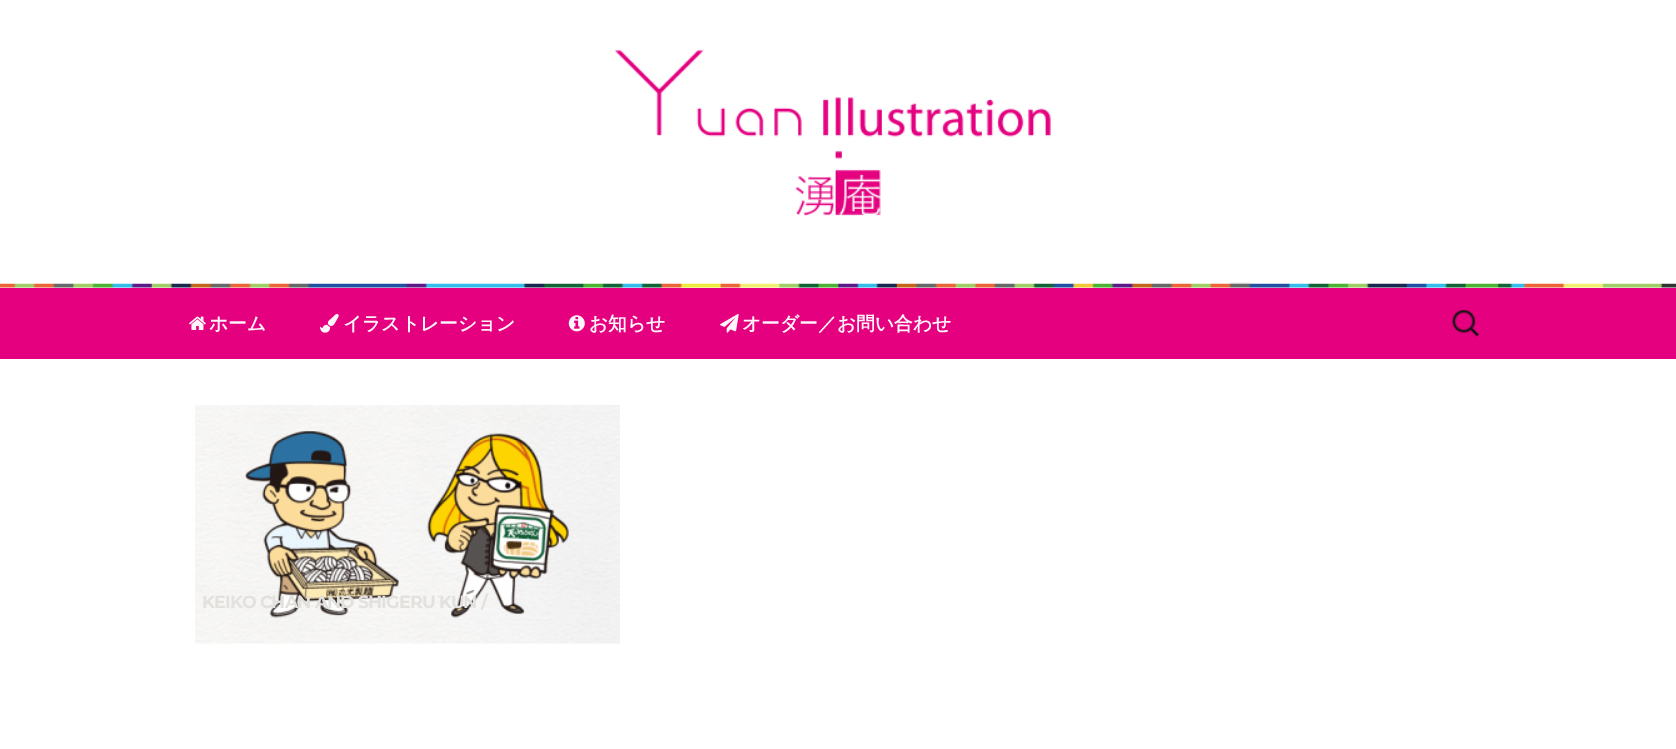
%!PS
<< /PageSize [1676 749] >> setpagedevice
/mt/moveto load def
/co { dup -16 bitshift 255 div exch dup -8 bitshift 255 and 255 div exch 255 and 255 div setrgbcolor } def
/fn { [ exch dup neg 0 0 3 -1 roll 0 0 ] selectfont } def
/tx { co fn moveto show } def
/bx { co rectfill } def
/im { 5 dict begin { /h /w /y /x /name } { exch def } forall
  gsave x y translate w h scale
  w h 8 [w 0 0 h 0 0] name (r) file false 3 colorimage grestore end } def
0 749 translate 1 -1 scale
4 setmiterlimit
0 0 1676 749 16#FFFFFF bx
(media/1.raw) 0 49 1676 239 im
0 288 1676 71 16#E4007F bx
(media/2.raw) 189 316 17 14 im
(media/3.raw) 320 314 19 19 im
(media/4.raw) 568 315 17 17 im
(media/5.raw) 720 314 19 19 im
(media/6.raw) 1452 309 27 28 im
(media/7.raw) 195 405 425 239 im
(ホーム) 209 330 /WenQuanYiZenHei-Bold 18.75 16#FFF6FB tx
(イラストレーション) 343 330 /WenQuanYiZenHei-Bold 18.75 16#FFF6FB tx
(お知らせ) 589 330 /WenQuanYiZenHei-Bold 18.75 16#FFF6FB tx
(オーダー／お問い合わせ) 742 330 /WenQuanYiZenHei-Bold 18.75 16#FFF6FB tx
/Montserrat-Bold 17.5 fn
16#E3E1DE co
202 608 mt -.9 0 (KEIKO CHAN AND SHIGERU KUN /) ashow
showpage
